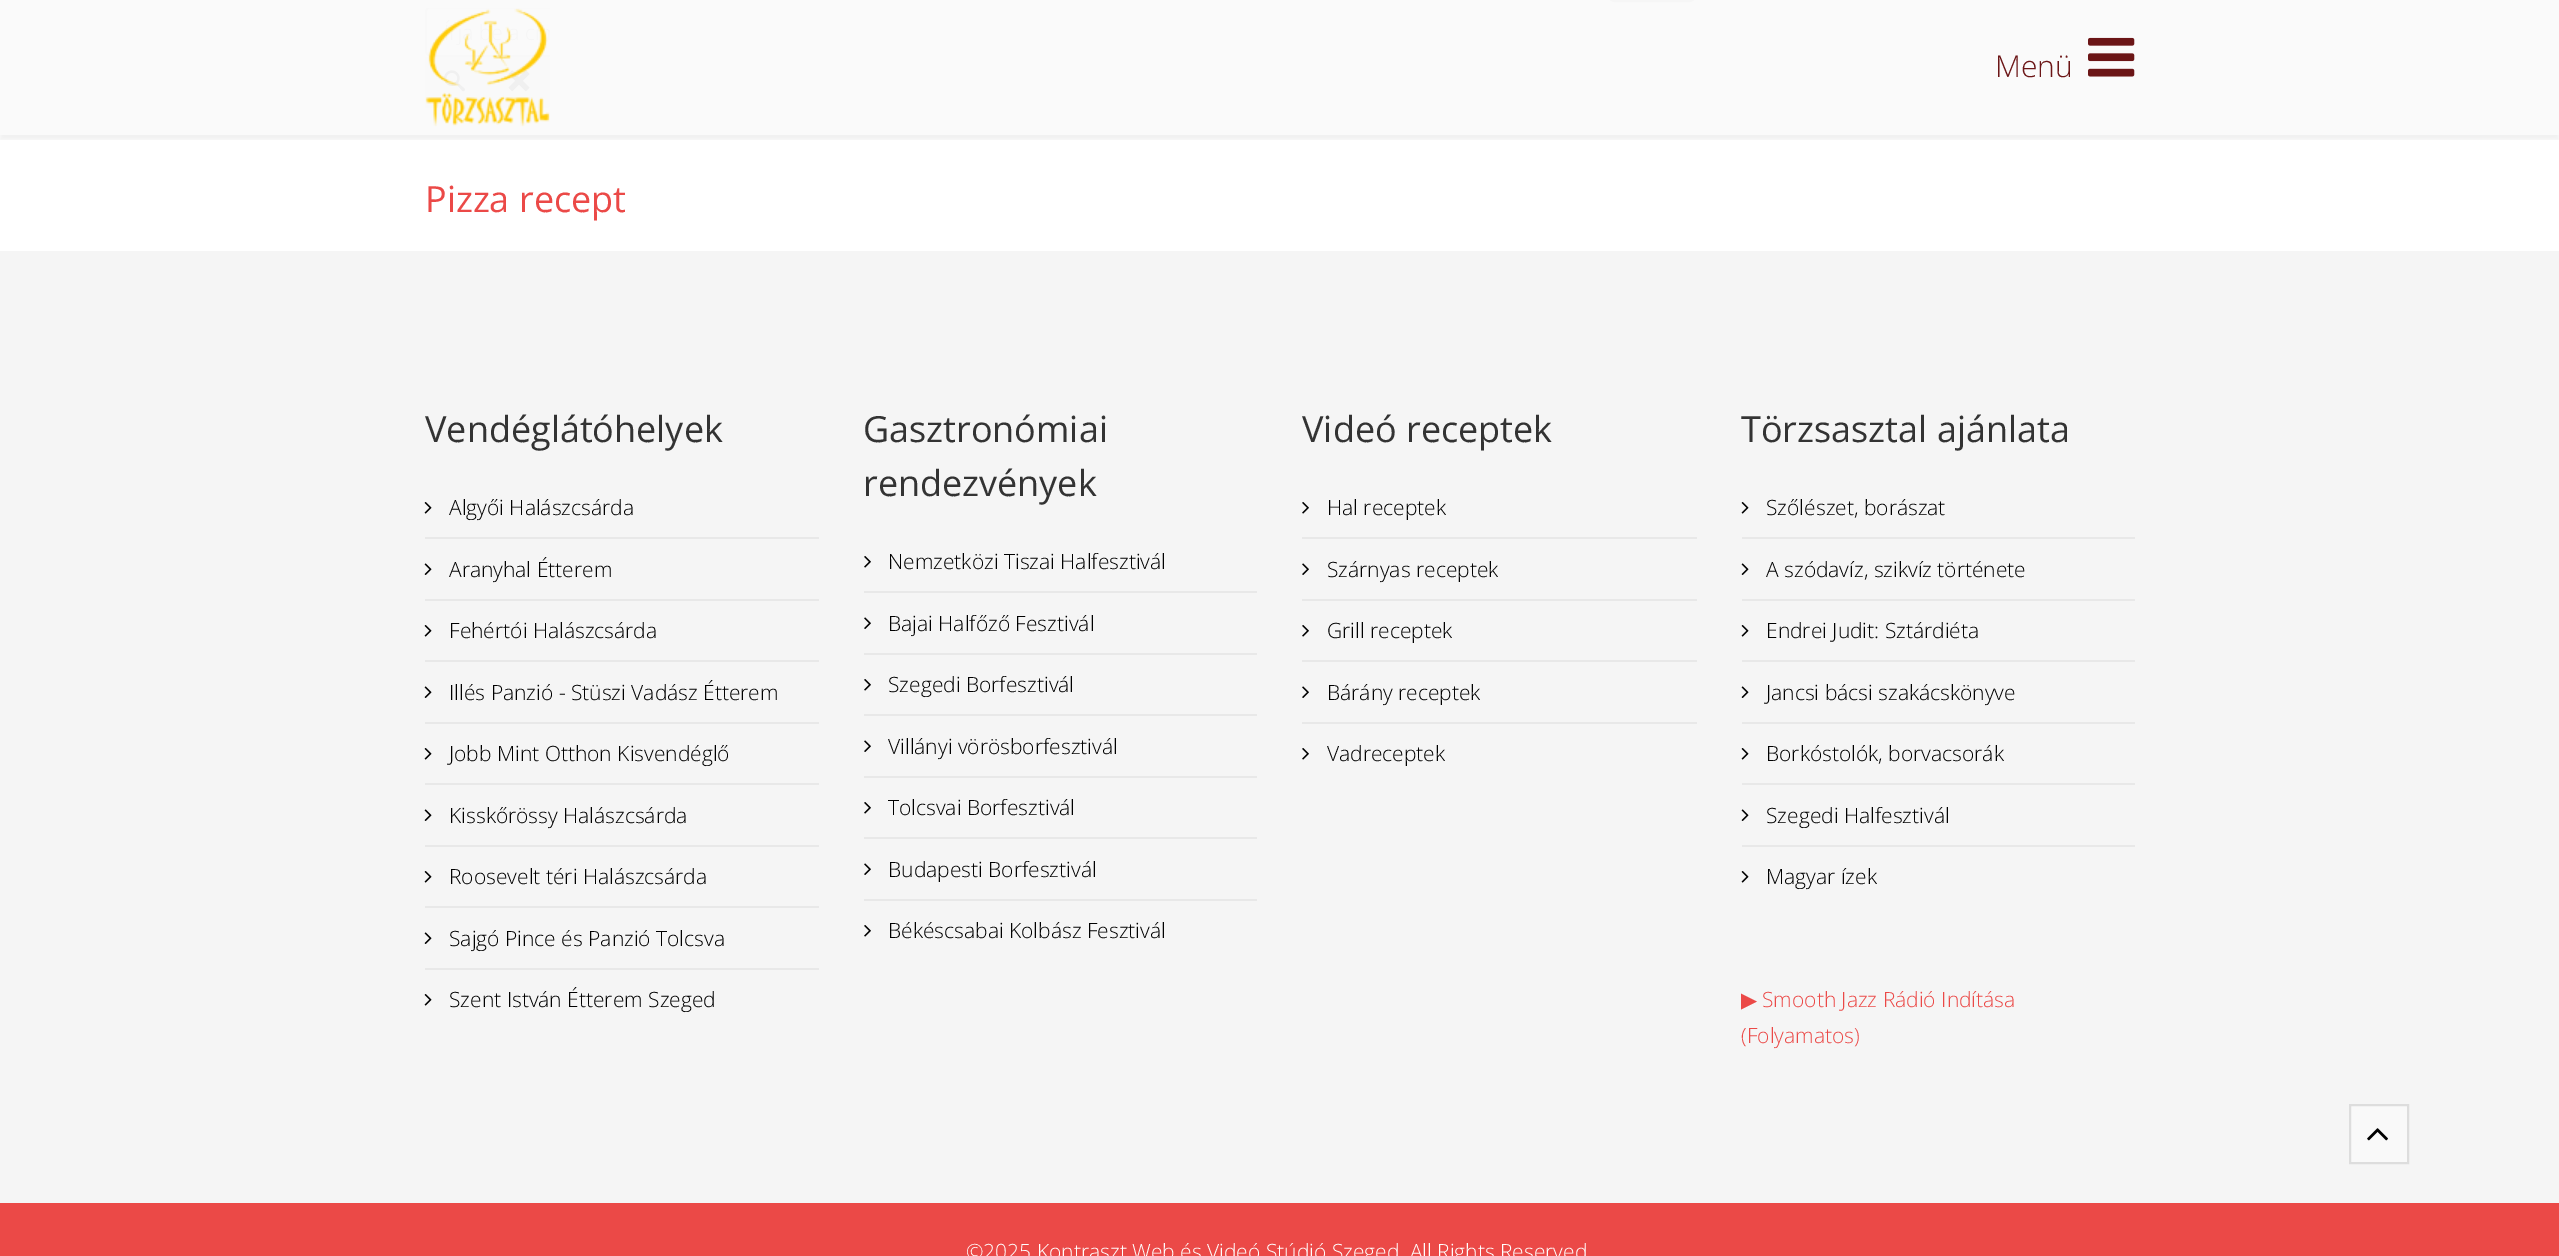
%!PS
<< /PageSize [2559 1256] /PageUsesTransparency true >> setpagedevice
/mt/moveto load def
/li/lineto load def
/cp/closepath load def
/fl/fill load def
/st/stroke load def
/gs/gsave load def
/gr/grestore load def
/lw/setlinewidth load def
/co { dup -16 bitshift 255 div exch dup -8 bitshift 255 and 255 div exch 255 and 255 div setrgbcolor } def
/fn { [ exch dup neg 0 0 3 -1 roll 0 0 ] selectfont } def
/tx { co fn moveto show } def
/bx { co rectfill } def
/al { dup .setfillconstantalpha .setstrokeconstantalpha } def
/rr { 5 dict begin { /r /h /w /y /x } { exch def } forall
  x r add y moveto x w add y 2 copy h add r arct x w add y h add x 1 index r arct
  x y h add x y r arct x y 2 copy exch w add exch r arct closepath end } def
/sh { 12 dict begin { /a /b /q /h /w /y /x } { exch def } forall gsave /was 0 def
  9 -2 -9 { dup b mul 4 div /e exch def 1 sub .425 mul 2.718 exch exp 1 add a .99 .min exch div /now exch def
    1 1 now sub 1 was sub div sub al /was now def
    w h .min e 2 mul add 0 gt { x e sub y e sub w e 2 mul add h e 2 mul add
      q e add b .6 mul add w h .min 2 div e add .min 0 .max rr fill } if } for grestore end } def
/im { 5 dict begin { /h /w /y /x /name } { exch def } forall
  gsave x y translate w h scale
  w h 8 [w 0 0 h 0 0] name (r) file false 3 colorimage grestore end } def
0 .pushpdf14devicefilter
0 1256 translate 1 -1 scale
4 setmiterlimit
0 0 2559 1256 16#FFFFFF bx
0 0 2559 135 16#FAFAFA bx
16#F6F6F6 co
2 lw
1608 -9 88 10 7 rr st
(media/3.raw) 444 70 21 22 im
(media/4.raw) 508 70 22 22 im
gs
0 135 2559 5 rectclip
16#000000 co
0 5 2559 135 0 2 .05 sh
gr
(media/1.raw) 425 8 125 119 im
(media/2.raw) 2088 37 47 40 im
0 251 2559 952 16#F5F5F5 bx
425 537 394 2 16#E8E8E8 bx
(media/5.raw) 424 502 8 12 im
425 599 394 2 16#E8E8E8 bx
(media/6.raw) 424 563 8 12 im
425 660 394 2 16#E8E8E8 bx
(media/5.raw) 424 625 8 12 im
425 722 394 2 16#E8E8E8 bx
(media/6.raw) 424 686 8 12 im
425 783 394 2 16#E8E8E8 bx
(media/5.raw) 424 748 8 12 im
425 845 394 2 16#E8E8E8 bx
(media/6.raw) 424 809 8 12 im
425 906 394 2 16#E8E8E8 bx
(media/5.raw) 424 871 8 12 im
425 968 394 2 16#E8E8E8 bx
(media/6.raw) 424 932 8 12 im
(media/5.raw) 424 994 8 12 im
864 591 393 2 16#E8E8E8 bx
(media/7.raw) 864 556 7 12 im
864 653 393 2 16#E8E8E8 bx
(media/8.raw) 864 617 7 12 im
864 714 393 2 16#E8E8E8 bx
(media/7.raw) 864 679 7 12 im
864 776 393 2 16#E8E8E8 bx
(media/8.raw) 864 740 7 12 im
864 837 393 2 16#E8E8E8 bx
(media/7.raw) 864 802 7 12 im
864 899 393 2 16#E8E8E8 bx
(media/8.raw) 864 863 7 12 im
(media/7.raw) 864 925 7 12 im
1302 537 395 2 16#E8E8E8 bx
(media/7.raw) 1302 502 7 12 im
1302 599 395 2 16#E8E8E8 bx
(media/8.raw) 1302 563 7 12 im
1302 660 395 2 16#E8E8E8 bx
(media/7.raw) 1302 625 7 12 im
1302 722 395 2 16#E8E8E8 bx
(media/8.raw) 1302 686 7 12 im
(media/7.raw) 1302 748 7 12 im
1742 537 393 2 16#E8E8E8 bx
(media/5.raw) 1741 502 8 12 im
1742 599 393 2 16#E8E8E8 bx
(media/6.raw) 1741 563 8 12 im
1742 660 393 2 16#E8E8E8 bx
(media/5.raw) 1741 625 8 12 im
1742 722 393 2 16#E8E8E8 bx
(media/6.raw) 1741 686 8 12 im
1742 783 393 2 16#E8E8E8 bx
(media/5.raw) 1741 748 8 12 im
1742 845 393 2 16#E8E8E8 bx
(media/6.raw) 1741 809 8 12 im
(media/5.raw) 1741 871 8 12 im
0 1203 2559 53 16#EB4947 bx
16#F9F9F9 co
2350 1105 mt 2408 1105 li 2408 1163 li 2350 1163 li cp gs fl gr
16#DDDDDD co
st
(media/9.raw) 2367 1128 21 13 im
(Menü) 1995 77 /OpenSans-Light 30 16#6B1516 tx
(Pizza recept) 425 212 /OpenSans-Regular 36 16#EB4947 tx
(Vendéglátóhelyek) 425 442 /OpenSans-Regular 36 16#333333 tx
(Algyői Halászcsárda) 449 515 /OpenSans-Light 21 16#000000 tx
(Aranyhal Étterem) 449 577 /OpenSans-Light 21 16#000000 tx
(Fehértói Halászcsárda) 449 638 /OpenSans-Light 21 16#000000 tx
(Illés Panzió - Stüszi Vadász Étterem) 449 700 /OpenSans-Light 21 16#000000 tx
(Jobb Mint Otthon Kisvendéglő) 449 761 /OpenSans-Light 21 16#000000 tx
(Kisskőrössy Halászcsárda) 449 823 /OpenSans-Light 21 16#000000 tx
(Roosevelt téri Halászcsárda) 449 884 /OpenSans-Light 21 16#000000 tx
(Sajgó Pince és Panzió Tolcsva) 449 946 /OpenSans-Light 21 16#000000 tx
(Szent István Étterem Szeged) 449 1007 /OpenSans-Light 21 16#000000 tx
(Gasztronómiai) 863 442 /OpenSans-Regular 36 16#333333 tx
(rendezvények) 863 496 /OpenSans-Regular 36 16#333333 tx
(Nemzetközi Tiszai Halfesztivál) 888 569 /OpenSans-Light 21 16#000000 tx
(Bajai Halfőző Fesztivál) 888 631 /OpenSans-Light 21 16#000000 tx
(Szegedi Borfesztivál) 888 692 /OpenSans-Light 21 16#000000 tx
(Villányi vörösborfesztivál) 888 754 /OpenSans-Light 21 16#000000 tx
(Tolcsvai Borfesztivál) 888 815 /OpenSans-Light 21 16#000000 tx
(Budapesti Borfesztivál) 888 877 /OpenSans-Light 21 16#000000 tx
(Békéscsabai Kolbász Fesztivál) 888 938 /OpenSans-Light 21 16#000000 tx
(Videó receptek) 1302 442 /OpenSans-Regular 36 16#333333 tx
(Hal receptek) 1327 515 /OpenSans-Light 21 16#000000 tx
(Szárnyas receptek) 1327 577 /OpenSans-Light 21 16#000000 tx
(Grill receptek) 1327 638 /OpenSans-Light 21 16#000000 tx
(Bárány receptek) 1327 700 /OpenSans-Light 21 16#000000 tx
(Vadreceptek) 1327 761 /OpenSans-Light 21 16#000000 tx
(Törzsasztal ajánlata) 1741 442 /OpenSans-Regular 36 16#333333 tx
(Szőlészet, borászat) 1766 515 /OpenSans-Light 21 16#000000 tx
(A szódavíz, szikvíz története) 1766 577 /OpenSans-Light 21 16#000000 tx
(Endrei Judit: Sztárdiéta) 1766 638 /OpenSans-Light 21 16#000000 tx
(Jancsi bácsi szakácskönyve) 1766 700 /OpenSans-Light 21 16#000000 tx
(Borkóstolók, borvacsorák) 1766 761 /OpenSans-Light 21 16#000000 tx
(Szegedi Halfesztivál) 1766 823 /OpenSans-Light 21 16#000000 tx
(Magyar ízek) 1766 884 /OpenSans-Light 21 16#000000 tx
(▶) 1741 1007 /DejaVuSans-Regular 21 16#EB4947 tx
(Smooth Jazz Rádió Indítása) 1762 1007 /OpenSans-Light 21 16#EB4947 tx
(\(Folyamatos\)) 1741 1043 /OpenSans-Light 21 16#EB4947 tx
(©2025 Kontraszt Web és Videó Stúdió Szeged. All Rights Reserved) 966 1259 /OpenSans-Light 21 16#FFFFFF tx
.poppdf14devicefilter showpage
